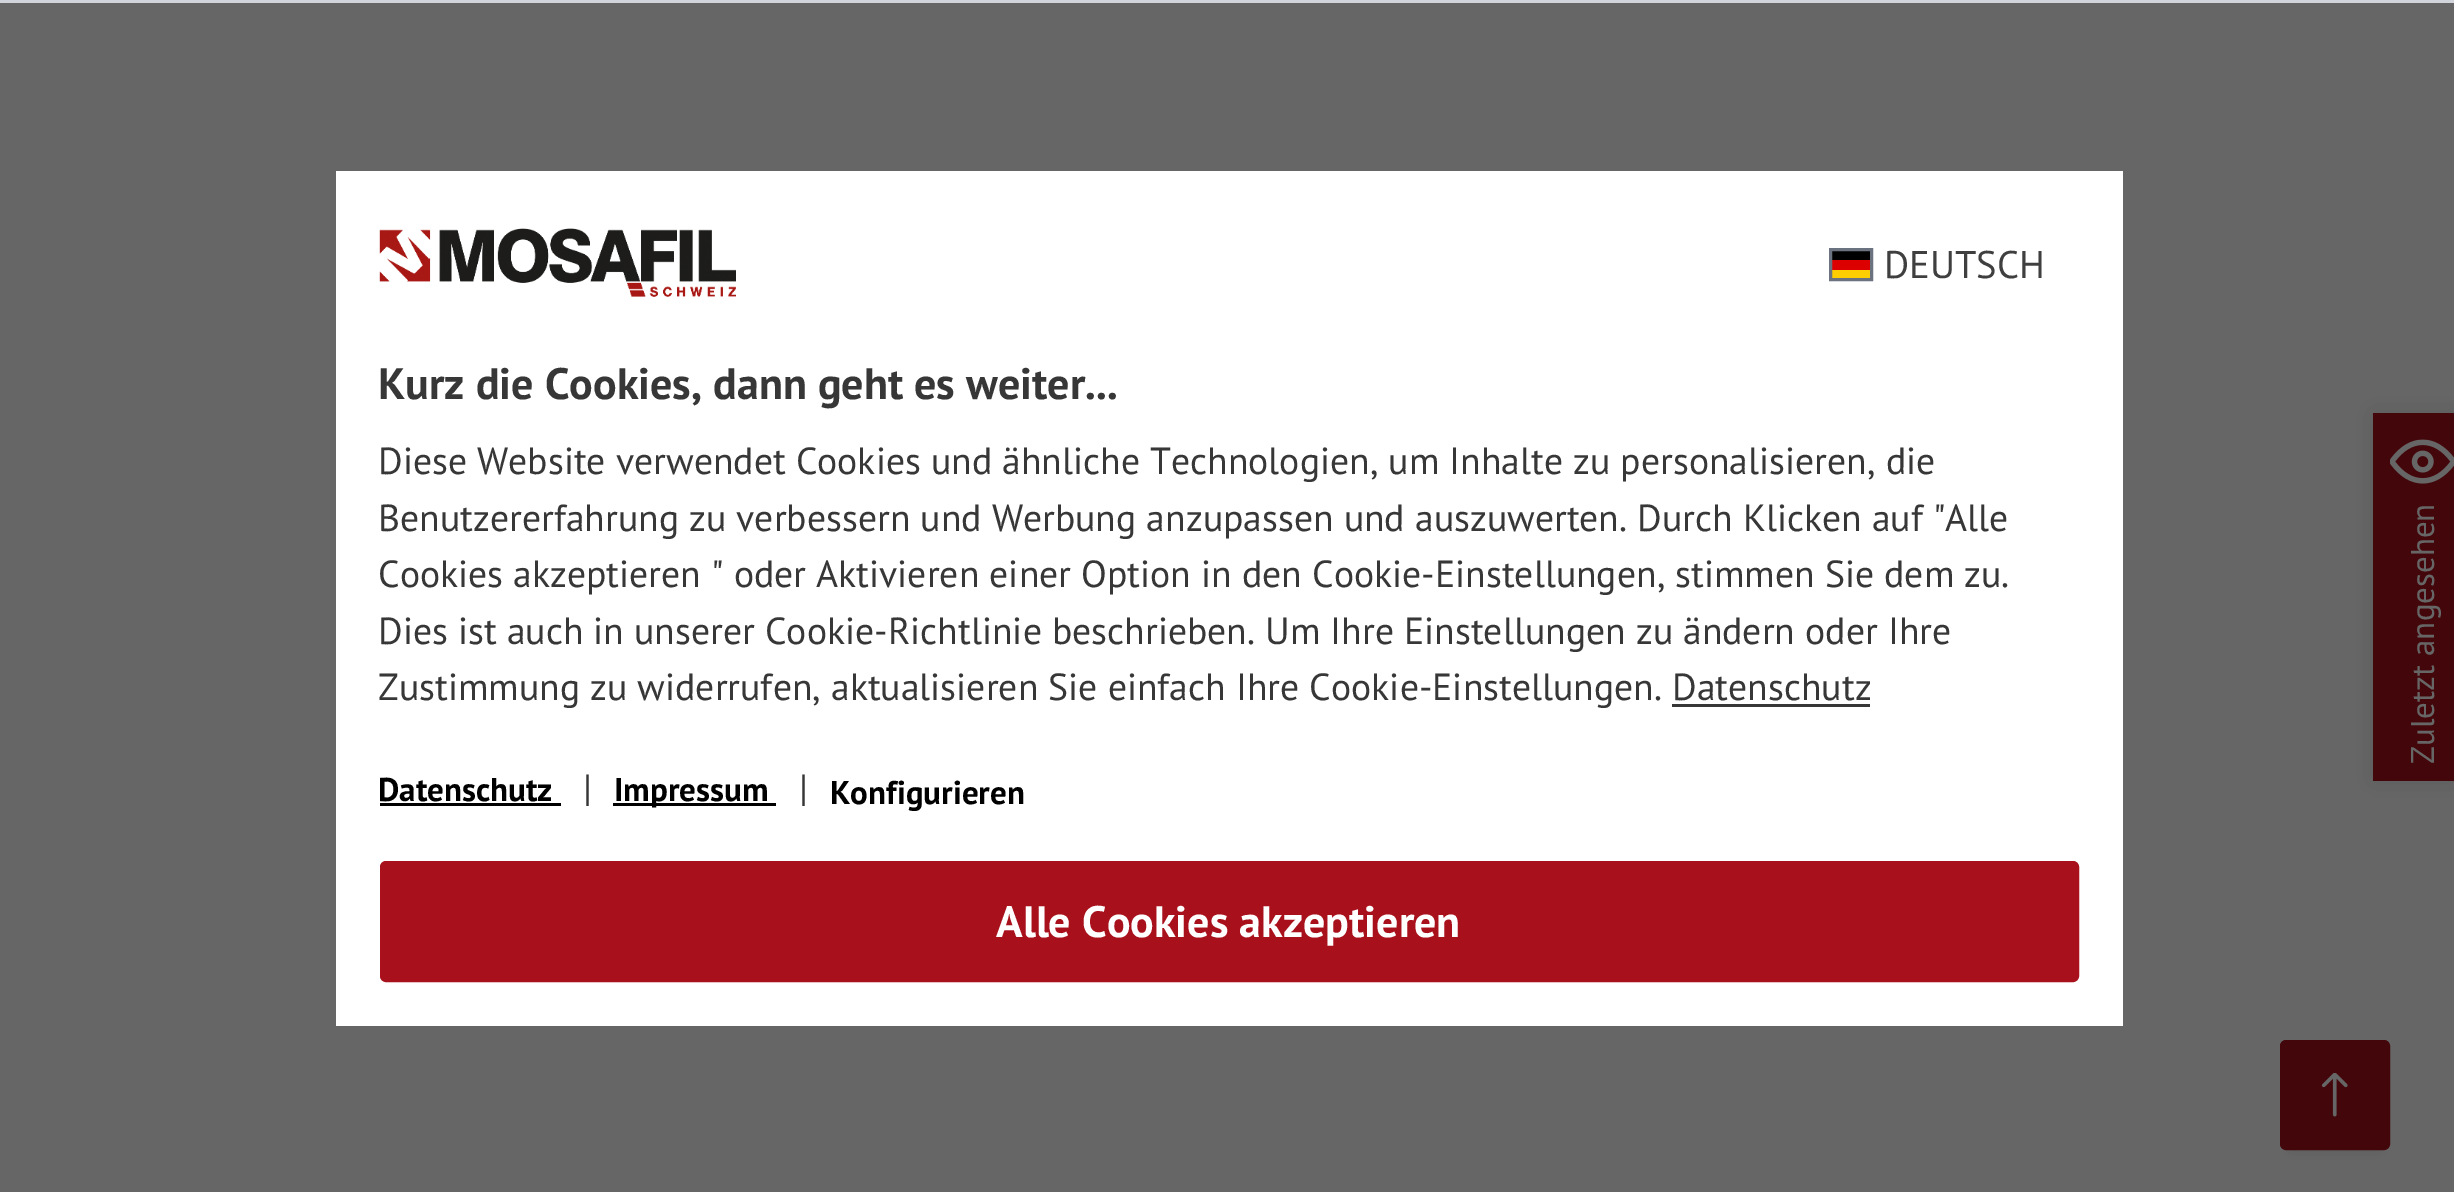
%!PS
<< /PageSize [2454 1192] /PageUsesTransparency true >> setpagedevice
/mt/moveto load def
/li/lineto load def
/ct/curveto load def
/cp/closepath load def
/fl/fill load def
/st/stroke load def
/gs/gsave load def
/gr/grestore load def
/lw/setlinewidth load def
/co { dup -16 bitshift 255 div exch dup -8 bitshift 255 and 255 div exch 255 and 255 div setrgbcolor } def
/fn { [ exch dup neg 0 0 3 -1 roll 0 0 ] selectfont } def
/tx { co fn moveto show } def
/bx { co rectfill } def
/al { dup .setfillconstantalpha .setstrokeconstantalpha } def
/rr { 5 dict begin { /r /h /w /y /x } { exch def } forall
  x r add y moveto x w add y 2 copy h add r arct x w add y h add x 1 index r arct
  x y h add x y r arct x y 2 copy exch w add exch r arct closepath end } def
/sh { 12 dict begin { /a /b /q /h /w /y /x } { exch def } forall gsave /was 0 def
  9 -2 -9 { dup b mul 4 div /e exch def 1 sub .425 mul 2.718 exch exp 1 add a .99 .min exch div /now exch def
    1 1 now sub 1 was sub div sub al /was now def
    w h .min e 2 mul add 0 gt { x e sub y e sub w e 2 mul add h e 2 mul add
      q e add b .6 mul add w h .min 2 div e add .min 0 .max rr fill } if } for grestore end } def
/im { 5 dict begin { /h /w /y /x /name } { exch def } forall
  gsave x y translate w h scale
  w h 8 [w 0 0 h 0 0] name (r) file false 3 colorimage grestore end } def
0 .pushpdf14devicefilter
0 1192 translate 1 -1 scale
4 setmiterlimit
0 0 2454 1192 16#666666 bx
0 0 2454 3 16#D1D5DB bx
336 171 1787 855 16#FFFFFF bx
(media/1.raw) 379 228 357 69 im
1832 270 38 8 16#FFCE00 bx
1832 251 38 9 16#000000 bx
1832 260 38 10 16#DD0000 bx
16#6B7280 co
3 lw
1830.5 249.5 41 30 rectstroke
1672 704 198 3 16#373737 bx
380 803 181 3 16#000000 bx
613 803 163 3 16#000000 bx
16#A8111C co
381.5 862.5 1696 118 4.5 rr gs fl gr
st
16#000000 co
2373 413 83 368 0 14 .1 sh
16#43070B co
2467 781 mt 2373 781 li 2373 413 li 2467 413 li 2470 413 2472 415 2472 418 ct 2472 775 li 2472 778 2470 781 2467 781 ct cp fl
(media/2.raw) 2390 439 64 45 im
16#000000 co
2291 1062 88 88 0 8 .1 sh
16#43070B co
2281.5 1041.5 107 107 4.5 rr gs fl gr
st
(media/3.raw) 2321 1073 27 44 im
(DEUTSCH) 1884 278 /PTSans-Regular 38.5 16#3F3F3F tx
(Kurz die Cookies, dann geht es weiter...) 378 399 /PTSans-Bold 44 16#373737 tx
(Diese Website verwendet Cookies und ähnliche Technologien, um Inhalte zu personalisieren, die) 378 474 /PTSans-Regular 37.7 16#373737 tx
(Benutzererfahrung zu verbessern und Werbung anzupassen und auszuwerten. Durch Klicken auf "Alle) 378 531 /PTSans-Regular 37.7 16#373737 tx
(Cookies akzeptieren " oder Aktivieren einer Option in den Cookie-Einstellungen, stimmen Sie dem zu.) 378 587 /PTSans-Regular 37.7 16#373737 tx
(Dies ist auch in unserer Cookie-Richtlinie beschrieben. Um Ihre Einstellungen zu ändern oder Ihre) 378 644 /PTSans-Regular 37.7 16#373737 tx
(Zustimmung zu widerrufen, aktualisieren Sie einfach Ihre Cookie-Einstellungen. Datenschutz) 378 700 /PTSans-Regular 37.7 16#373737 tx
(Datenschutz) 378 801 /PTSans-Bold 33 16#000000 tx
(|) 583 801 /PTSans-Regular 37.7 16#373737 tx
(Impressum) 614 801 /PTSans-Bold 33 16#000000 tx
(|) 799 801 /PTSans-Regular 37.7 16#373737 tx
(Konfigurieren) 830 804 /PTSans-Bold 33 16#000000 tx
(Alle Cookies akzeptieren) 996 937 /PTSans-Bold 44 16#FFFFFF tx
/PTSans-Regular 33 fn
16#666666 co
gs 2434 764 translate -90 rotate 0 0 mt (Zuletzt angesehen) show gr
.poppdf14devicefilter showpage
